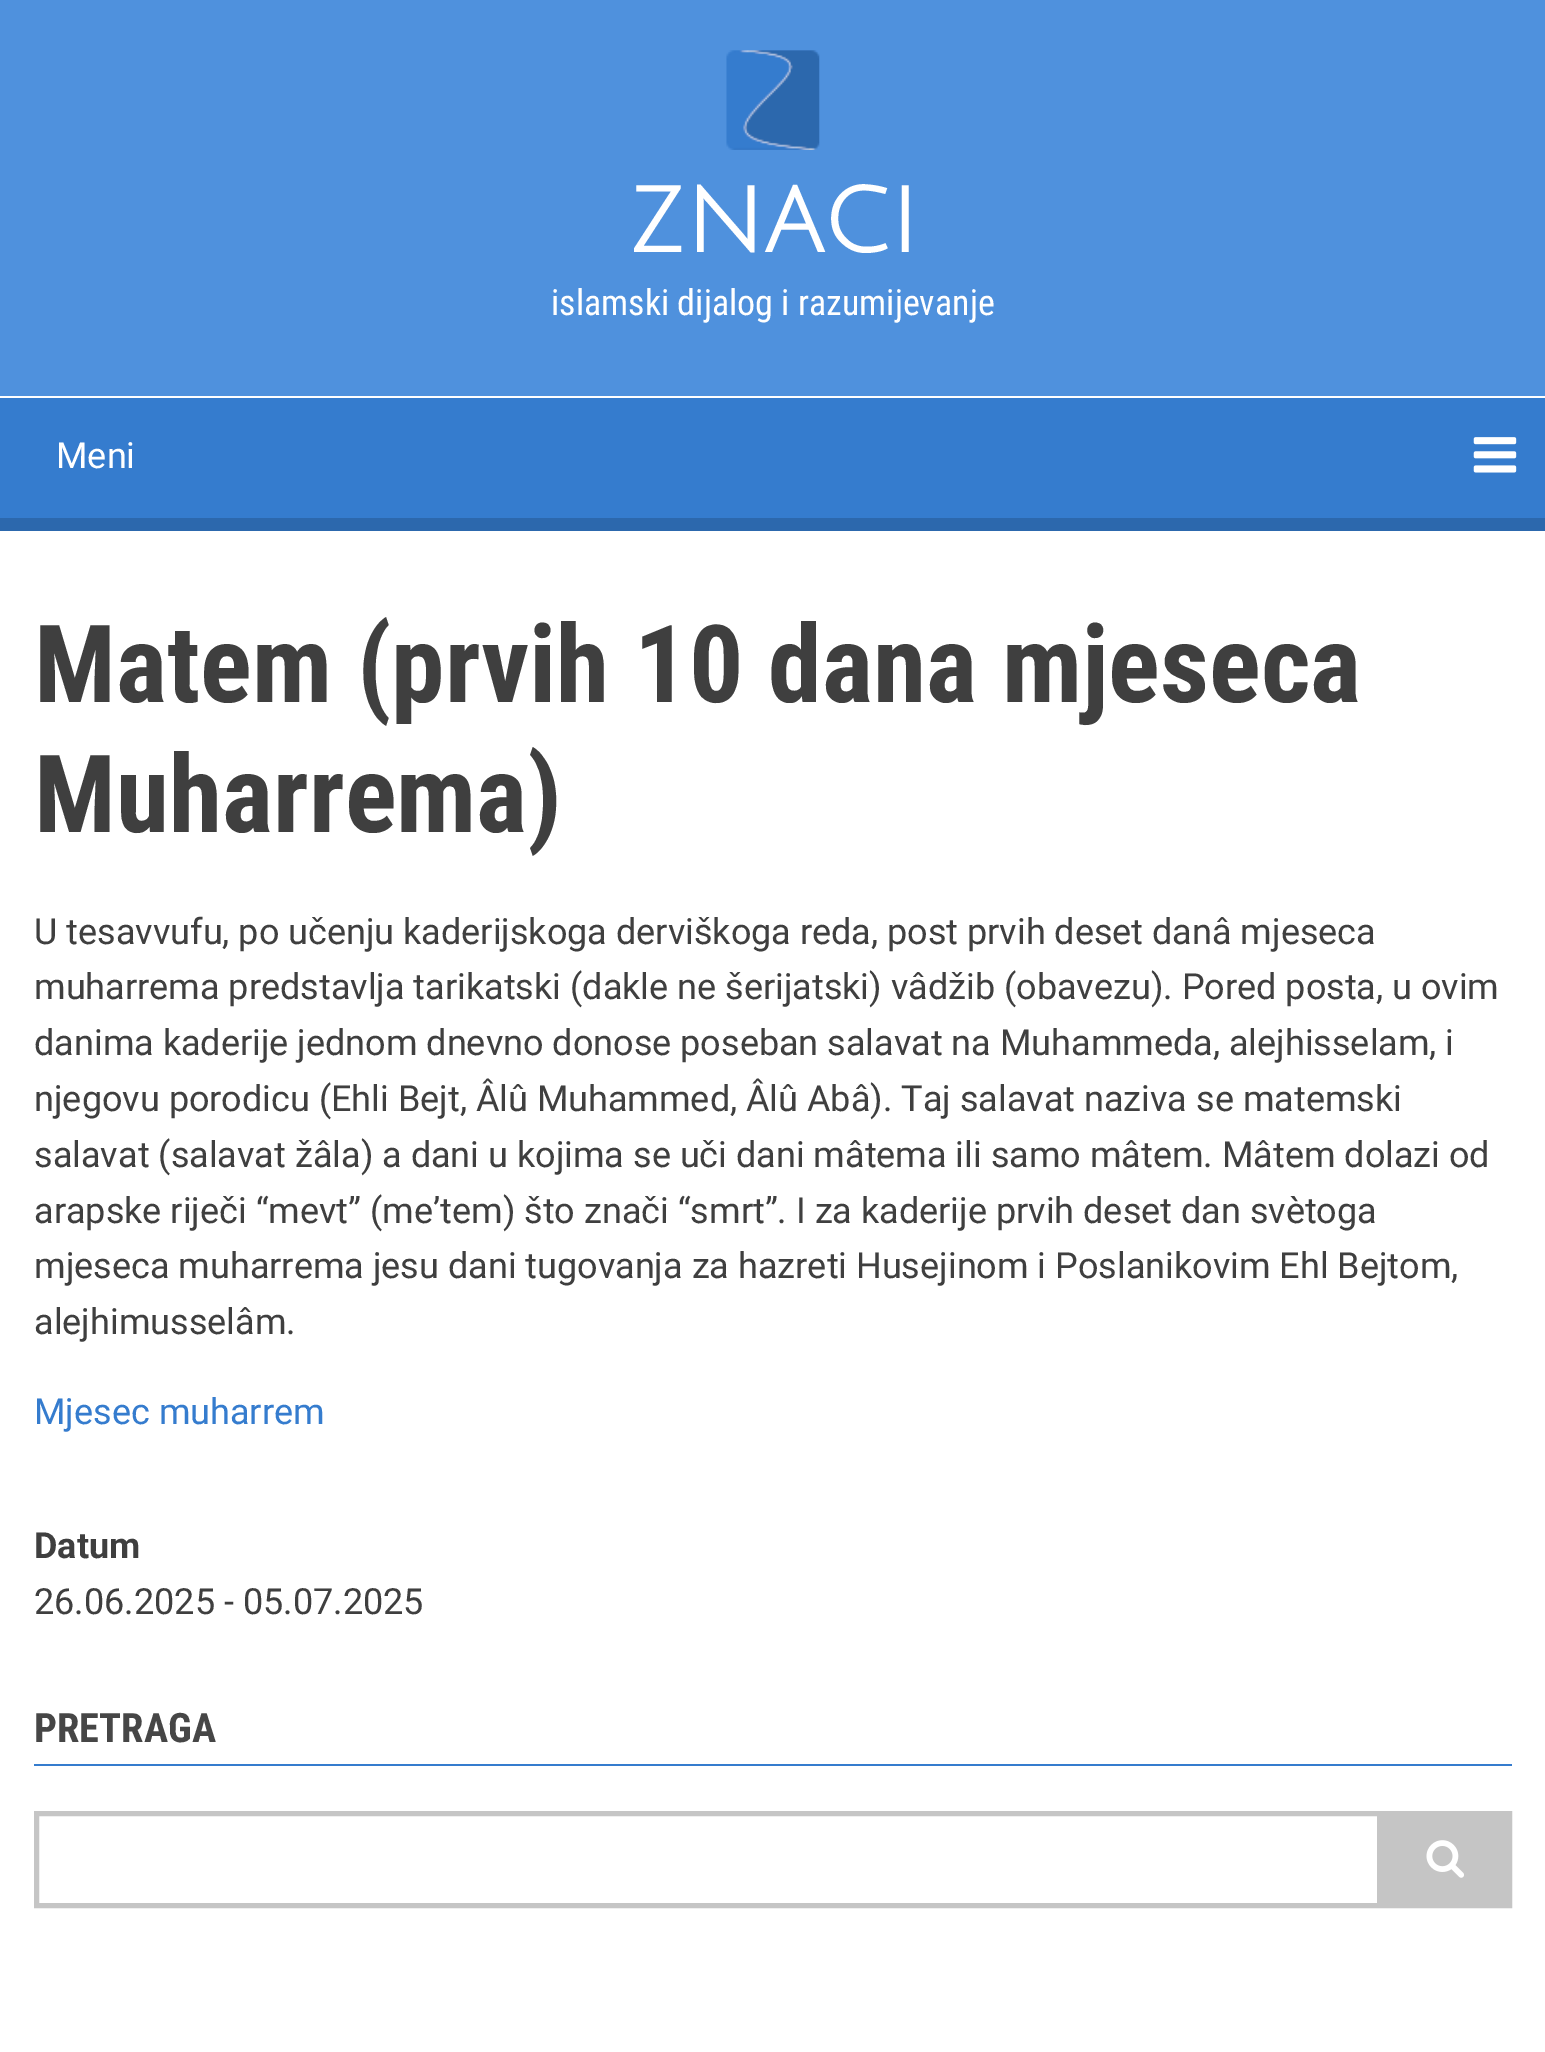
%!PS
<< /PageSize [1545 2052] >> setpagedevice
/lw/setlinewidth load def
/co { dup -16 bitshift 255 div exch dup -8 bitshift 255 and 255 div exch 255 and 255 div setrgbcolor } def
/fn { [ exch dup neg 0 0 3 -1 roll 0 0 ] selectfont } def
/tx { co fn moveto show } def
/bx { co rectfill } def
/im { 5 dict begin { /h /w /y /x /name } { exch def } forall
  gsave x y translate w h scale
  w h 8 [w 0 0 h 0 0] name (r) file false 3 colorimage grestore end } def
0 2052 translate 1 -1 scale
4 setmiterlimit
0 0 1545 2052 16#4F91DD bx
0 396 1545 2 16#FFFFFF bx
(media/1.raw) 726 50 94 100 im
0 398 1545 120 16#357CCE bx
0 518 1545 13 16#2C68AD bx
(media/2.raw) 1473 437 44 36 im
0 531 1545 1521 16#FFFFFF bx
34 1764 1478 2 16#357CCE bx
16#C5C5C5 co
5 lw
36.5 1813.5 1473 92 rectstroke
1377 1816 130 87 16#C5C5C5 bx
(media/3.raw) 1426 1840 38 38 im
(ZNACI) 628 252 /JuliusSansOne-Bold 90 16#FFFFFF tx
(islamski dijalog i razumijevanje) 551 315 /RobotoCondensed-Regular 36 16#FFFFFF tx
(Meni) 56 468 /Roboto-Regular 36 16#FFFFFF tx
(Matem \(prvih 10 dana mjeseca) 34 702 /RobotoCondensed-Bold 108 16#3F3F3F tx
(Muharrema\)) 34 832 /RobotoCondensed-Bold 108 16#3F3F3F tx
(U tesavvufu, po učenju kaderijskoga derviškoga reda, post prvih deset danâ mjeseca) 34 944 /Roboto-Regular 36 16#3F3F3F tx
(muharrema predstavlja tarikatski \(dakle ne šerijatski\) vâdžib \(obavezu\). Pored posta, u ovim) 34 999 /Roboto-Regular 36 16#3F3F3F tx
(danima kaderije jednom dnevno donose poseban salavat na Muhammeda, alejhisselam, i) 34 1055 /Roboto-Regular 36 16#3F3F3F tx
(njegovu porodicu \(Ehli Bejt, Âlû Muhammed, Âlû Abâ\). Taj salavat naziva se matemski) 34 1111 /Roboto-Regular 36 16#3F3F3F tx
(salavat \(salavat žâla\) a dani u kojima se uči dani mâtema ili samo mâtem. Mâtem dolazi od) 34 1167 /Roboto-Regular 36 16#3F3F3F tx
(arapske riječi “mevt” \(me’tem\) što znači “smrt”. I za kaderije prvih deset dan svètoga) 34 1223 /Roboto-Regular 36 16#3F3F3F tx
(mjeseca muharrema jesu dani tugovanja za hazreti Husejinom i Poslanikovim Ehl Bejtom,) 34 1278 /Roboto-Regular 36 16#3F3F3F tx
(alejhimusselâm.) 34 1334 /Roboto-Regular 36 16#3F3F3F tx
(Mjesec muharrem) 34 1424 /Roboto-Regular 36 16#357CCE tx
(Datum) 34 1558 /Roboto-Bold 36 16#3F3F3F tx
(26.06.2025 - 05.07.2025) 34 1614 /Roboto-Regular 36 16#3F3F3F tx
(PRETRAGA) 34 1742 /RobotoCondensed-Bold 40.5 16#464646 tx
showpage
